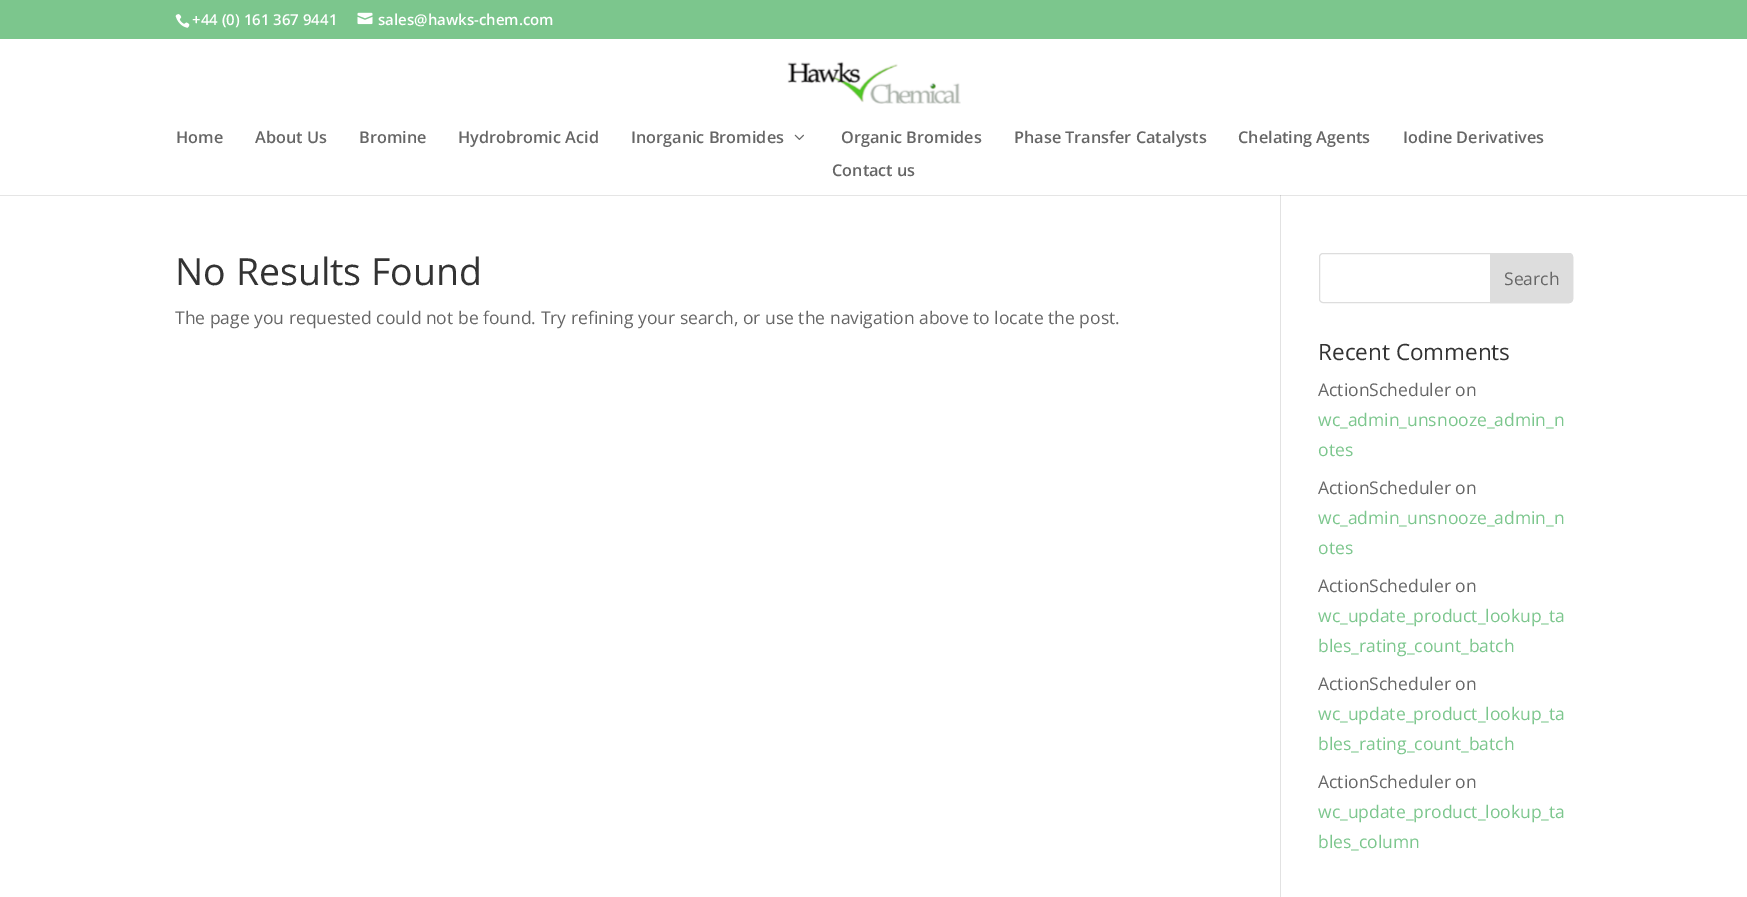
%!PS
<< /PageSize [1747 897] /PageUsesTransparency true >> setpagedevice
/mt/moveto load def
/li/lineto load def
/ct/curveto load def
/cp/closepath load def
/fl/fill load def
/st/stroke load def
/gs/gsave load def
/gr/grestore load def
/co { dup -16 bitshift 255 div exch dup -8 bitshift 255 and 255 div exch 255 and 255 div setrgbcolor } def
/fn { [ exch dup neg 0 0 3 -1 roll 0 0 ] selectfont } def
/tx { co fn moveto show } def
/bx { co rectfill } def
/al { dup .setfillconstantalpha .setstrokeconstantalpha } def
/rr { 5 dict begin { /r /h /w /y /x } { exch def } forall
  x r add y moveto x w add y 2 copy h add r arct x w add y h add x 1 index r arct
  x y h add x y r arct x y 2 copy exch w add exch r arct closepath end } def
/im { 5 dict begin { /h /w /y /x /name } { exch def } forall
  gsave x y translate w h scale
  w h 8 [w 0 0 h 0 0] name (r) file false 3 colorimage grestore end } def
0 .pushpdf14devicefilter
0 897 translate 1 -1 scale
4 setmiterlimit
0 0 1747 897 16#FFFFFF bx
0 0 1747 39 16#7CC68D bx
(media/1.raw) 175 14 15 14 im
(media/2.raw) 357 12 16 13 im
1280 195 1 702 16#E2E2E2 bx
0.1 al
16#000000 co
0 195 mt 0 196 li 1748 196 li 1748 40 li 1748 195 li cp fl
1 al
(media/3.raw) 787 61 174 43 im
(media/4.raw) 794 134 10 6 im
16#DDDDDD co
1319.5 253.5 253 49 3.5 rr st
1490.5 253.5 mt 1569 253.5 li 1571 253.5 1572.5 255 1572.5 257 ct 1572.5 299 li 1572.5 301 1571 302.5 1569 302.5 ct 1490.5 302.5 li cp gs fl gr
st
(+44 \(0\) 161 367 9441) 192 25 /OpenSans-SemiBold 15 16#FFFFFF tx
(sales@hawks-chem.com) 378 25 /OpenSans-SemiBold 15 16#FFFFFF tx
(Home) 176 143 /OpenSans-SemiBold 16.25 16#666666 tx
(About Us) 255 143 /OpenSans-SemiBold 16.25 16#666666 tx
(Bromine) 359 143 /OpenSans-SemiBold 16.25 16#666666 tx
(Hydrobromic Acid) 458 143 /OpenSans-SemiBold 16.25 16#666666 tx
(Inorganic Bromides) 631 143 /OpenSans-SemiBold 16.25 16#666666 tx
(Organic Bromides) 841 143 /OpenSans-SemiBold 16.25 16#666666 tx
(Phase Transfer Catalysts) 1014 143 /OpenSans-SemiBold 16.25 16#666666 tx
(Chelating Agents) 1238 143 /OpenSans-SemiBold 16.25 16#666666 tx
(Iodine Derivatives) 1403 143 /OpenSans-SemiBold 16.25 16#666666 tx
(Contact us) 832 176 /OpenSans-SemiBold 16.25 16#666666 tx
(No Results Found) 175 285 /OpenSans-Regular 37.5 16#333333 tx
(The page you requested could not be found. Try refining your search, or use the navigation above to locate the post.) 175 324 /OpenSans-Regular 17.5 16#666666 tx
(Search) 1504 285 /OpenSans-Regular 17.5 16#666666 tx
(Recent Comments) 1318 360 /OpenSans-Regular 22.5 16#333333 tx
(ActionScheduler on) 1318 396 /OpenSans-Regular 17.5 16#666666 tx
(wc_admin_unsnooze_admin_n) 1318 426 /OpenSans-Regular 17.5 16#7CC68D tx
(otes) 1318 456 /OpenSans-Regular 17.5 16#7CC68D tx
(ActionScheduler on) 1318 494 /OpenSans-Regular 17.5 16#666666 tx
(wc_admin_unsnooze_admin_n) 1318 524 /OpenSans-Regular 17.5 16#7CC68D tx
(otes) 1318 554 /OpenSans-Regular 17.5 16#7CC68D tx
(ActionScheduler on) 1318 592 /OpenSans-Regular 17.5 16#666666 tx
(wc_update_product_lookup_ta) 1318 622 /OpenSans-Regular 17.5 16#7CC68D tx
(bles_rating_count_batch) 1318 652 /OpenSans-Regular 17.5 16#7CC68D tx
(ActionScheduler on) 1318 690 /OpenSans-Regular 17.5 16#666666 tx
(wc_update_product_lookup_ta) 1318 720 /OpenSans-Regular 17.5 16#7CC68D tx
(bles_rating_count_batch) 1318 750 /OpenSans-Regular 17.5 16#7CC68D tx
(ActionScheduler on) 1318 788 /OpenSans-Regular 17.5 16#666666 tx
(wc_update_product_lookup_ta) 1318 818 /OpenSans-Regular 17.5 16#7CC68D tx
(bles_column) 1318 848 /OpenSans-Regular 17.5 16#7CC68D tx
.poppdf14devicefilter showpage
